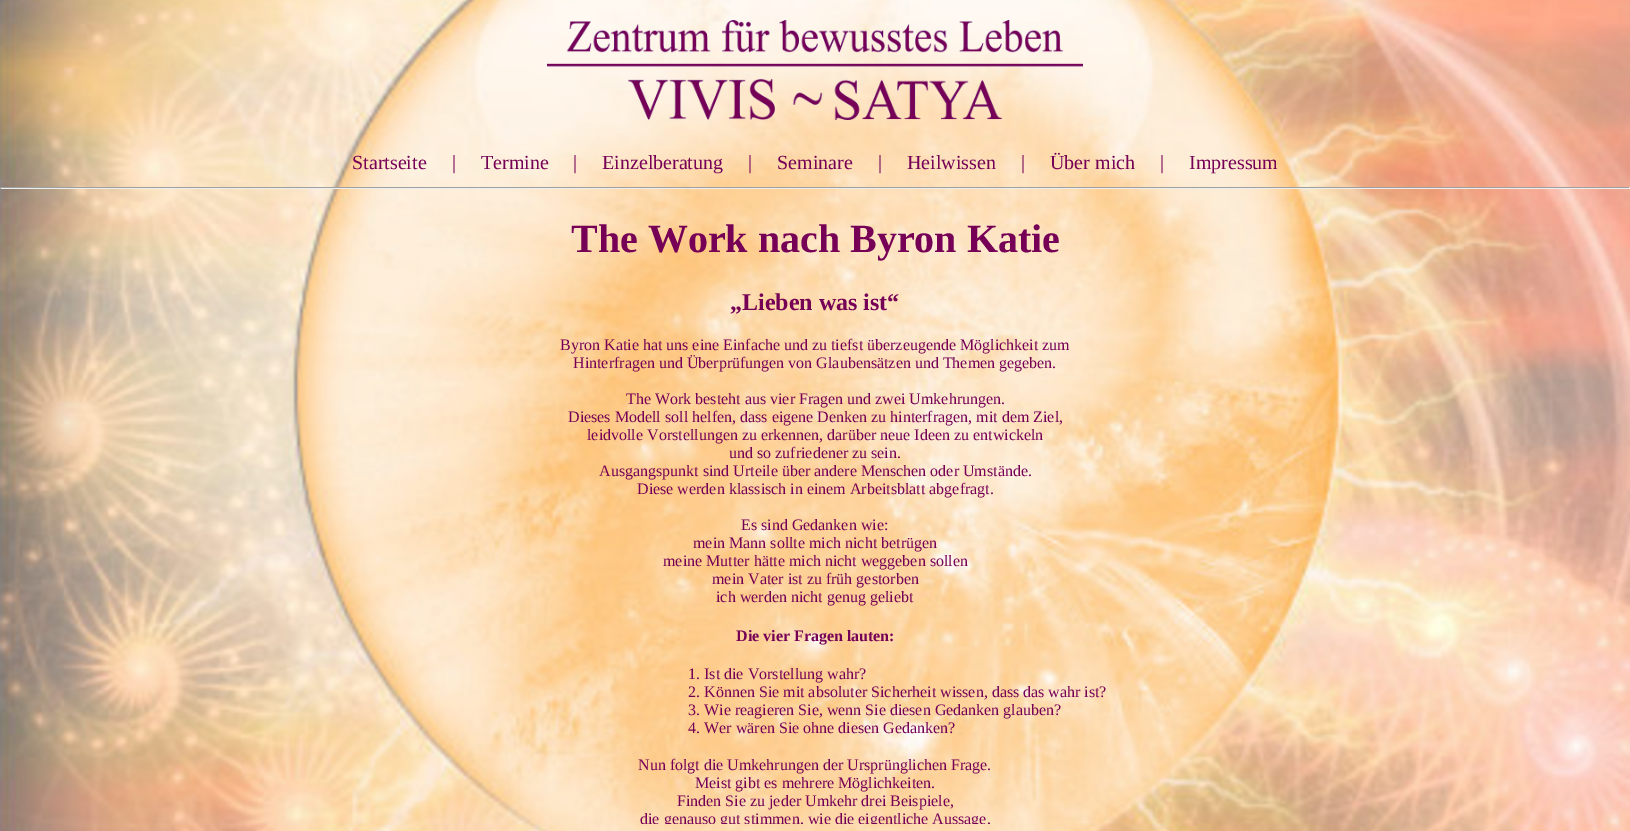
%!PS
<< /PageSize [1630 831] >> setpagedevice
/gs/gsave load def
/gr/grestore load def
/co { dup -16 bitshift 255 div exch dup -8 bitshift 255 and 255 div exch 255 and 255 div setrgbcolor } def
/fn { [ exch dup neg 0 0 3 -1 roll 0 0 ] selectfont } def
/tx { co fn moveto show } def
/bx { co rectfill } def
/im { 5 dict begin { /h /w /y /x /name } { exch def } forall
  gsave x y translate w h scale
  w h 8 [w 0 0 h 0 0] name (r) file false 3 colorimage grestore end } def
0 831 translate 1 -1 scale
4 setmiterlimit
0 0 1630 831 16#FFFFFF bx
(media/1.raw) 0 0 1630 831 im
(media/2.raw) 547 20 536 100 im
0 187 1630 1 16#9F9F9F bx
1629 187 1 2 16#EEEEEE bx
0 188 1630 1 16#EEEEEE bx
0 187 1 2 16#9F9F9F bx
(Startseite) 352 169 /LiberationSerif-Regular 20 16#760056 tx
(|) 452 169 /LiberationSerif-Regular 20 16#760056 tx
(Termine) 481 169 /LiberationSerif-Regular 20 16#760056 tx
(|) 573 169 /LiberationSerif-Regular 20 16#760056 tx
(Einzelberatung) 602 169 /LiberationSerif-Regular 20 16#760056 tx
(|) 748 169 /LiberationSerif-Regular 20 16#760056 tx
(Seminare) 777 169 /LiberationSerif-Regular 20 16#760056 tx
(|) 878 169 /LiberationSerif-Regular 20 16#760056 tx
(Heilwissen) 907 169 /LiberationSerif-Regular 20 16#760056 tx
(|) 1021 169 /LiberationSerif-Regular 20 16#760056 tx
(Über mich) 1050 169 /LiberationSerif-Regular 20 16#760056 tx
(|) 1160 169 /LiberationSerif-Regular 20 16#760056 tx
(Impressum) 1189 169 /LiberationSerif-Regular 20 16#760056 tx
(The Work nach Byron Katie) 571 252 /LiberationSerif-Bold 40 16#760056 tx
(„Lieben was ist“) 730 310 /LiberationSerif-Bold 24 16#760056 tx
(Byron Katie hat uns eine Einfache und zu tiefst überzeugende Möglichkeit zum) 560 350 /LiberationSerif-Regular 16 16#760056 tx
(Hinterfragen und Überprüfungen von Glaubensätzen und Themen gegeben.) 573 368 /LiberationSerif-Regular 16 16#760056 tx
(The Work besteht aus vier Fragen und zwei Umkehrungen.) 626 404 /LiberationSerif-Regular 16 16#760056 tx
(Dieses Modell soll helfen, dass eigene Denken zu hinterfragen, mit dem Ziel,) 568 422 /LiberationSerif-Regular 16 16#760056 tx
(leidvolle Vorstellungen zu erkennen, darüber neue Ideen zu entwickeln) 587 440 /LiberationSerif-Regular 16 16#760056 tx
(und so zufriedener zu sein.) 729 458 /LiberationSerif-Regular 16 16#760056 tx
(Ausgangspunkt sind Urteile über andere Menschen oder Umstände.) 599 476 /LiberationSerif-Regular 16 16#760056 tx
(Diese werden klassisch in einem Arbeitsblatt abgefragt.) 637 494 /LiberationSerif-Regular 16 16#760056 tx
(Es sind Gedanken wie:) 741 530 /LiberationSerif-Regular 16 16#760056 tx
(mein Mann sollte mich nicht betrügen) 693 548 /LiberationSerif-Regular 16 16#760056 tx
(meine Mutter hätte mich nicht weggeben sollen) 663 566 /LiberationSerif-Regular 16 16#760056 tx
(mein Vater ist zu früh gestorben) 712 584 /LiberationSerif-Regular 16 16#760056 tx
(ich werden nicht genug geliebt) 716 602 /LiberationSerif-Regular 16 16#760056 tx
(Die vier Fragen lauten:) 736 641 /LiberationSerif-Bold 16 16#760056 tx
(1. Ist die Vorstellung wahr?) 688 679 /LiberationSerif-Regular 16 16#760056 tx
(2. Können Sie mit absoluter Sicherheit wissen, dass das wahr ist?) 688 697 /LiberationSerif-Regular 16 16#760056 tx
(3. Wie reagieren Sie, wenn Sie diesen Gedanken glauben?) 688 715 /LiberationSerif-Regular 16 16#760056 tx
(4. Wer wären Sie ohne diesen Gedanken?) 688 733 /LiberationSerif-Regular 16 16#760056 tx
(Nun folgt die Umkehrungen der Ursprünglichen Frage.) 638 770 /LiberationSerif-Regular 16 16#760056 tx
(Meist gibt es mehrere Möglichkeiten.) 695 788 /LiberationSerif-Regular 16 16#760056 tx
(Finden Sie zu jeder Umkehr drei Beispiele,) 677 806 /LiberationSerif-Regular 16 16#760056 tx
gs
0 0 1630 824 rectclip
(die genauso gut stimmen, wie die eigentliche Aussage,) 640 824 /LiberationSerif-Regular 16 16#760056 tx
gr
showpage
